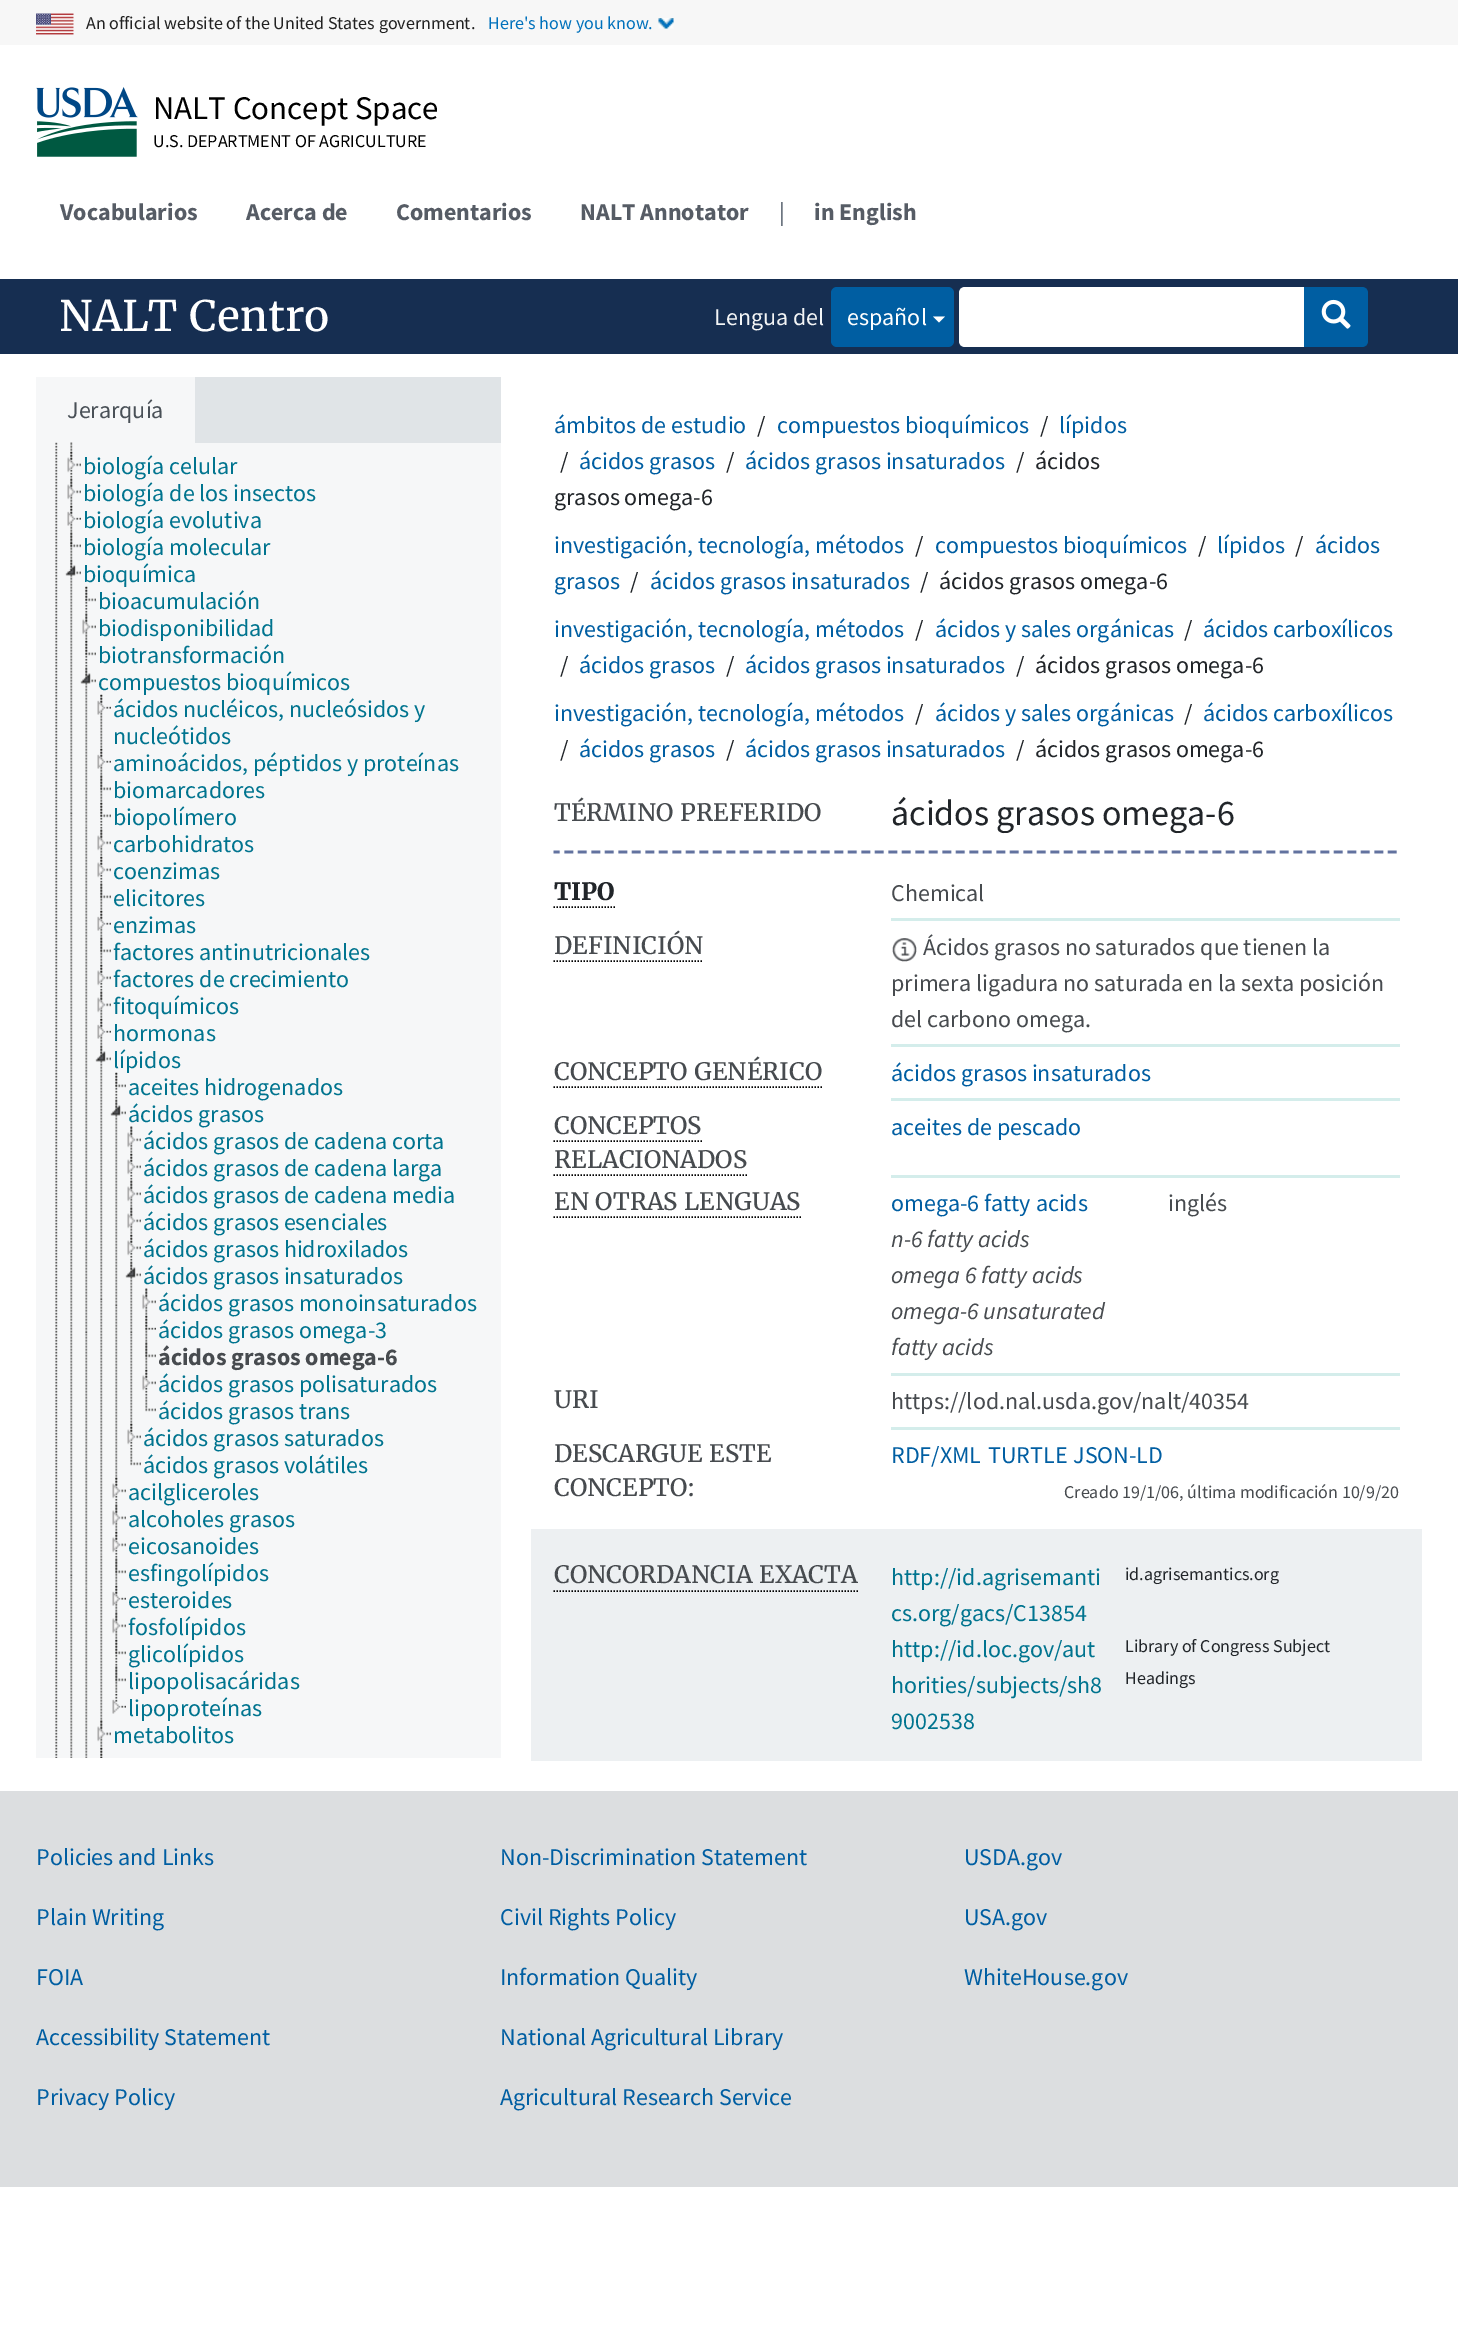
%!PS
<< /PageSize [1458 2337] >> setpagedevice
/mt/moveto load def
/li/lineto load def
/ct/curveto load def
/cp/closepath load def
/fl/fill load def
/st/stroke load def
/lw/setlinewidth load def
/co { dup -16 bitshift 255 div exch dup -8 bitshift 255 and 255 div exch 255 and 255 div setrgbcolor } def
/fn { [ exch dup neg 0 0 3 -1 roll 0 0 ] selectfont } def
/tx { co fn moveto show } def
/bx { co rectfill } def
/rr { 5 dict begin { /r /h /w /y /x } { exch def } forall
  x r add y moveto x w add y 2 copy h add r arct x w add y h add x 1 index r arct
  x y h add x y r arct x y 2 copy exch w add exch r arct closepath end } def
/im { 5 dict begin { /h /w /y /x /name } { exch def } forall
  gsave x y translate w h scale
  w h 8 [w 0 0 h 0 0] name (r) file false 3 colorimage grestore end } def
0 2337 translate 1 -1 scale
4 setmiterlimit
0 0 1458 2337 16#FFFFFF bx
0 0 1458 45 16#F7F7F7 bx
(media/1.raw) 36 13 38 22 im
(media/2.raw) 658 18 16 11 im
(media/3.raw) 36 87 102 70 im
0 279 1458 75 16#162E51 bx
16#005EA2 co
831 287 123 60 6 rr fl
16#FFFFFF co
933 316.5 mt 945 316.5 li 939 322.5 li cp fl
965 287 mt 1305 287 li 1305 347 li 965 347 li 961.5 347 959 344.5 959 341 ct 959 293 li 959 289.5 961.5 287 965 287 ct cp fl
16#005EA2 co
1304 287 mt 1362 287 li 1365.5 287 1368 289.5 1368 293 ct 1368 341 li 1368 344.5 1365.5 347 1362 347 ct 1304 347 li cp fl
(media/4.raw) 1321 299 30 30 im
195 377 306 66 16#E0E4E7 bx
36 377 159 66 16#F6F7F8 bx
36 443 465 1315 16#F6F7F8 bx
(media/5.raw) 55 442 3 1316 im
(media/6.raw) 70 442 3 10 im
(media/7.raw) 70 452 3 26 im
(media/8.raw) 67 451 14 22 im
(media/9.raw) 70 478 3 28 im
(media/10.raw) 67 478 14 22 im
(media/11.raw) 70 505 3 28 im
(media/12.raw) 67 506 14 20 im
(media/13.raw) 70 532 3 28 im
(media/14.raw) 70 532 11 16 im
(media/15.raw) 70 559 3 1199 im
(media/16.raw) 65 559 16 17 im
(media/7.raw) 85 587 3 26 im
(media/9.raw) 85 613 3 28 im
(media/10.raw) 82 613 14 22 im
(media/7.raw) 85 641 3 26 im
(media/18.raw) 85 640 11 16 im
(media/19.raw) 85 667 3 1091 im
(media/20.raw) 80 667 16 17 im
(media/21.raw) 100 694 3 55 im
(media/12.raw) 97 695 14 20 im
(media/11.raw) 100 748 3 28 im
(media/12.raw) 97 749 14 20 im
(media/11.raw) 100 775 3 28 im
(media/22.raw) 100 775 11 16 im
(media/7.raw) 100 803 3 26 im
(media/18.raw) 100 802 11 16 im
(media/9.raw) 100 829 3 28 im
(media/10.raw) 97 829 14 22 im
(media/7.raw) 100 857 3 26 im
(media/8.raw) 97 856 14 22 im
(media/9.raw) 100 883 3 28 im
(media/23.raw) 100 883 11 16 im
(media/11.raw) 100 910 3 28 im
(media/12.raw) 97 911 14 20 im
(media/11.raw) 100 937 3 28 im
(media/22.raw) 100 937 11 16 im
(media/7.raw) 100 965 3 26 im
(media/8.raw) 97 964 14 22 im
(media/9.raw) 100 991 3 28 im
(media/10.raw) 97 991 14 22 im
(media/11.raw) 100 1018 3 28 im
(media/12.raw) 97 1019 14 20 im
(media/24.raw) 100 1045 3 677 im
(media/25.raw) 95 1045 16 17 im
(media/7.raw) 115 1073 3 26 im
(media/26.raw) 115 1099 3 380 im
(media/20.raw) 110 1099 16 17 im
(media/9.raw) 130 1126 3 28 im
(media/7.raw) 130 1154 3 26 im
(media/8.raw) 127 1153 14 22 im
(media/9.raw) 130 1180 3 28 im
(media/10.raw) 127 1180 14 22 im
(media/11.raw) 130 1207 3 28 im
(media/27.raw) 127 1207 14 22 im
(media/7.raw) 130 1235 3 26 im
(media/8.raw) 127 1234 14 22 im
(media/28.raw) 130 1261 3 164 im
(media/20.raw) 125 1261 16 17 im
(media/9.raw) 145 1288 3 28 im
(media/11.raw) 145 1315 3 28 im
(media/29.raw) 145 1316 11 14 im
(media/11.raw) 145 1342 3 28 im
(media/22.raw) 145 1342 11 16 im
(media/7.raw) 145 1370 3 26 im
(media/8.raw) 142 1369 14 22 im
(media/30.raw) 145 1396 11 16 im
(media/31.raw) 130 1424 3 26 im
(media/32.raw) 127 1423 14 22 im
(media/30.raw) 130 1450 11 16 im
(media/31.raw) 115 1478 3 26 im
(media/32.raw) 112 1477 14 22 im
(media/9.raw) 115 1504 3 28 im
(media/10.raw) 112 1504 14 22 im
(media/7.raw) 115 1532 3 26 im
(media/8.raw) 112 1531 14 22 im
(media/33.raw) 115 1558 3 28 im
(media/34.raw) 115 1558 11 16 im
(media/11.raw) 115 1585 3 28 im
(media/12.raw) 112 1586 14 20 im
(media/11.raw) 115 1612 3 28 im
(media/27.raw) 112 1612 14 22 im
(media/7.raw) 115 1640 3 26 im
(media/18.raw) 115 1639 11 16 im
(media/9.raw) 115 1666 3 28 im
(media/23.raw) 115 1666 11 16 im
(media/35.raw) 112 1694 14 20 im
(media/36.raw) 100 1720 3 28 im
(media/37.raw) 97 1720 14 22 im
(media/38.raw) 100 1748 3 10 im
(media/39.raw) 100 1747 3 11 im
(media/40.raw) 553 850 844 4 im
16#000000 co
1.5 lw
[1.5 1.5] 0 setdash
553.5 907 mt 615 907 li st
891 918 509 3 16#D4EDEB bx
16#000000 co
553.5 961 mt 703.5 961 li st
891 1044 509 3 16#D4EDEB bx
(media/41.raw) 892 938 25 24 im
16#000000 co
553.5 1087 mt 822 1087 li st
891 1098 509 3 16#D4EDEB bx
16#000000 co
553.5 1141 mt 702 1141 li st
553.5 1175 mt 747 1175 li st
891 1175 509 3 16#D4EDEB bx
16#000000 co
553.5 1217 mt 801 1217 li st
891 1373 509 3 16#D4EDEB bx
891 1427 509 3 16#D4EDEB bx
531 1529 891 232 16#EDF0F2 bx
16#000000 co
553.5 1591 mt 858 1591 li st
0 1791 1458 396 16#DCDEE0 bx
(An official website of the United States government.) 86 29 /SourceSansPro-Regular 18 16#212121 tx
(Here's how you know.) 488 29 /SourceSansPro-Regular 18 16#0071BC tx
(NALT Concept Space) 153 119 /SourceSansPro-Regular 33 16#000000 tx
(U.S. DEPARTMENT OF AGRICULTURE) 153 147 /SourceSansPro-Regular 18 16#000000 tx
(Vocabularios) 60 220 /SourceSansPro-Bold 24 16#565C65 tx
(Acerca de) 246 220 /SourceSansPro-Bold 24 16#565C65 tx
(Comentarios) 396 220 /SourceSansPro-Bold 24 16#565C65 tx
(NALT Annotator) 580 220 /SourceSansPro-Bold 24 16#565C65 tx
(|) 779 220 /SourceSansPro-Regular 24 16#394554 tx
(in English) 814 220 /SourceSansPro-Bold 24 16#565C65 tx
(NALT Centro) 59 331 /Merriweather-Regular 42 16#FFFFFF tx
(Lengua del) 714 325 /SourceSansPro-Regular 24 16#F3F5F6 tx
(español) 847 325 /SourceSansPro-Regular 24 16#FFFFFF tx
(Jerarquía) 67 418 /SourceSansPro-Regular 24 16#495057 tx
(biología celular) 83 474 /SourceSansPro-Regular 24 16#00748F tx
(biología de los insectos) 83 501 /SourceSansPro-Regular 24 16#00748F tx
(biología evolutiva) 83 528 /SourceSansPro-Regular 24 16#00748F tx
(biología molecular) 83 555 /SourceSansPro-Regular 24 16#00748F tx
(bioquímica) 83 582 /SourceSansPro-Regular 24 16#00748F tx
(media/17.raw) 85 586 11 16 im
(bioacumulación) 98 609 /SourceSansPro-Regular 24 16#00748F tx
(biodisponibilidad) 98 636 /SourceSansPro-Regular 24 16#00748F tx
(biotransformación) 98 663 /SourceSansPro-Regular 24 16#00748F tx
(compuestos bioquímicos) 98 690 /SourceSansPro-Regular 24 16#00748F tx
(ácidos nucléicos, nucleósidos y) 113 717 /SourceSansPro-Regular 24 16#00748F tx
(nucleótidos) 113 744 /SourceSansPro-Regular 24 16#00748F tx
(aminoácidos, péptidos y proteínas) 113 771 /SourceSansPro-Regular 24 16#00748F tx
(biomarcadores) 113 798 /SourceSansPro-Regular 24 16#00748F tx
(biopolímero) 113 825 /SourceSansPro-Regular 24 16#00748F tx
(carbohidratos) 113 852 /SourceSansPro-Regular 24 16#00748F tx
(coenzimas) 113 879 /SourceSansPro-Regular 24 16#00748F tx
(elicitores) 113 906 /SourceSansPro-Regular 24 16#00748F tx
(enzimas) 113 933 /SourceSansPro-Regular 24 16#00748F tx
(factores antinutricionales) 113 960 /SourceSansPro-Regular 24 16#00748F tx
(factores de crecimiento) 113 987 /SourceSansPro-Regular 24 16#00748F tx
(fitoquímicos) 113 1014 /SourceSansPro-Regular 24 16#00748F tx
(hormonas) 113 1041 /SourceSansPro-Regular 24 16#00748F tx
(lípidos) 113 1068 /SourceSansPro-Regular 24 16#00748F tx
(media/17.raw) 115 1072 11 16 im
(aceites hidrogenados) 128 1095 /SourceSansPro-Regular 24 16#00748F tx
(ácidos grasos) 128 1122 /SourceSansPro-Regular 24 16#00748F tx
(media/10.raw) 127 1126 14 22 im
(ácidos grasos de cadena corta) 143 1149 /SourceSansPro-Regular 24 16#00748F tx
(ácidos grasos de cadena larga) 143 1176 /SourceSansPro-Regular 24 16#00748F tx
(ácidos grasos de cadena media) 143 1203 /SourceSansPro-Regular 24 16#00748F tx
(ácidos grasos esenciales) 143 1230 /SourceSansPro-Regular 24 16#00748F tx
(ácidos grasos hidroxilados) 143 1257 /SourceSansPro-Regular 24 16#00748F tx
(ácidos grasos insaturados) 143 1284 /SourceSansPro-Regular 24 16#00748F tx
(media/10.raw) 142 1288 14 22 im
(ácidos grasos monoinsaturados) 158 1311 /SourceSansPro-Regular 24 16#00748F tx
(ácidos grasos omega-3) 158 1338 /SourceSansPro-Regular 24 16#00748F tx
(ácidos grasos omega-6) 158 1365 /SourceSansPro-Bold 24 16#474B4F tx
(ácidos grasos polisaturados) 158 1392 /SourceSansPro-Regular 24 16#00748F tx
(ácidos grasos trans) 158 1419 /SourceSansPro-Regular 24 16#00748F tx
(ácidos grasos saturados) 143 1446 /SourceSansPro-Regular 24 16#00748F tx
(ácidos grasos volátiles) 143 1473 /SourceSansPro-Regular 24 16#00748F tx
(acilgliceroles) 128 1500 /SourceSansPro-Regular 24 16#00748F tx
(alcoholes grasos) 128 1527 /SourceSansPro-Regular 24 16#00748F tx
(eicosanoides) 128 1554 /SourceSansPro-Regular 24 16#00748F tx
(esfingolípidos) 128 1581 /SourceSansPro-Regular 24 16#00748F tx
(esteroides) 128 1608 /SourceSansPro-Regular 24 16#00748F tx
(fosfolípidos) 128 1635 /SourceSansPro-Regular 24 16#00748F tx
(glicolípidos) 128 1662 /SourceSansPro-Regular 24 16#00748F tx
(lipopolisacáridas) 128 1689 /SourceSansPro-Regular 24 16#00748F tx
(lipoproteínas) 128 1716 /SourceSansPro-Regular 24 16#00748F tx
(metabolitos) 113 1743 /SourceSansPro-Regular 24 16#00748F tx
(ámbitos de estudio) 554 433 /SourceSansPro-Regular 24 16#005EA2 tx
(/) 757 433 /SourceSansPro-Regular 24 16#212529 tx
(compuestos bioquímicos) 777 433 /SourceSansPro-Regular 24 16#005EA2 tx
(/) 1040 433 /SourceSansPro-Regular 24 16#212529 tx
(lípidos) 1059 433 /SourceSansPro-Regular 24 16#005EA2 tx
(/) 560 469 /SourceSansPro-Regular 24 16#212529 tx
(ácidos grasos) 579 469 /SourceSansPro-Regular 24 16#005EA2 tx
(/) 726 469 /SourceSansPro-Regular 24 16#212529 tx
(ácidos grasos insaturados) 745 469 /SourceSansPro-Regular 24 16#005EA2 tx
(/) 1016 469 /SourceSansPro-Regular 24 16#212529 tx
(ácidos) 1035 469 /SourceSansPro-Regular 24 16#212529 tx
(grasos omega-6) 554 505 /SourceSansPro-Regular 24 16#212529 tx
(investigación, tecnología, métodos) 554 553 /SourceSansPro-Regular 24 16#005EA2 tx
(/) 915 553 /SourceSansPro-Regular 24 16#212529 tx
(compuestos bioquímicos) 935 553 /SourceSansPro-Regular 24 16#005EA2 tx
(/) 1198 553 /SourceSansPro-Regular 24 16#212529 tx
(lípidos) 1217 553 /SourceSansPro-Regular 24 16#005EA2 tx
(/) 1295 553 /SourceSansPro-Regular 24 16#212529 tx
(ácidos) 1315 553 /SourceSansPro-Regular 24 16#005EA2 tx
(grasos) 554 589 /SourceSansPro-Regular 24 16#005EA2 tx
(/) 630 589 /SourceSansPro-Regular 24 16#212529 tx
(ácidos grasos insaturados) 650 589 /SourceSansPro-Regular 24 16#005EA2 tx
(/) 920 589 /SourceSansPro-Regular 24 16#212529 tx
(ácidos grasos omega-6) 939 589 /SourceSansPro-Regular 24 16#212529 tx
(investigación, tecnología, métodos) 554 637 /SourceSansPro-Regular 24 16#005EA2 tx
(/) 915 637 /SourceSansPro-Regular 24 16#212529 tx
(ácidos y sales orgánicas) 935 637 /SourceSansPro-Regular 24 16#005EA2 tx
(/) 1184 637 /SourceSansPro-Regular 24 16#212529 tx
(ácidos carboxílicos) 1203 637 /SourceSansPro-Regular 24 16#005EA2 tx
(/) 560 673 /SourceSansPro-Regular 24 16#212529 tx
(ácidos grasos) 579 673 /SourceSansPro-Regular 24 16#005EA2 tx
(/) 726 673 /SourceSansPro-Regular 24 16#212529 tx
(ácidos grasos insaturados) 745 673 /SourceSansPro-Regular 24 16#005EA2 tx
(/) 1016 673 /SourceSansPro-Regular 24 16#212529 tx
(ácidos grasos omega-6) 1035 673 /SourceSansPro-Regular 24 16#212529 tx
(investigación, tecnología, métodos) 554 721 /SourceSansPro-Regular 24 16#005EA2 tx
(/) 915 721 /SourceSansPro-Regular 24 16#212529 tx
(ácidos y sales orgánicas) 935 721 /SourceSansPro-Regular 24 16#005EA2 tx
(/) 1184 721 /SourceSansPro-Regular 24 16#212529 tx
(ácidos carboxílicos) 1203 721 /SourceSansPro-Regular 24 16#005EA2 tx
(/) 560 757 /SourceSansPro-Regular 24 16#212529 tx
(ácidos grasos) 579 757 /SourceSansPro-Regular 24 16#005EA2 tx
(/) 726 757 /SourceSansPro-Regular 24 16#212529 tx
(ácidos grasos insaturados) 745 757 /SourceSansPro-Regular 24 16#005EA2 tx
(/) 1016 757 /SourceSansPro-Regular 24 16#212529 tx
(ácidos grasos omega-6) 1035 757 /SourceSansPro-Regular 24 16#212529 tx
(TÉRMINO PREFERIDO) 554 821 /Merriweather-Regular 24 16#474B4F tx
(ácidos grasos omega-6) 891 825 /SourceSansPro-Regular 36 16#212529 tx
(TIPO) 554 900 /Merriweather-Bold 24 16#212529 tx
(Chemical) 891 901 /SourceSansPro-Regular 24 16#474B4F tx
(DEFINICIÓN) 554 954 /Merriweather-Regular 24 16#474B4F tx
(Ácidos grasos no saturados que tienen la) 923 955 /SourceSansPro-Regular 24 16#474B4F tx
(primera ligadura no saturada en la sexta posición) 891 991 /SourceSansPro-Regular 24 16#474B4F tx
(del carbono omega.) 891 1027 /SourceSansPro-Regular 24 16#474B4F tx
(CONCEPTO GENÉRICO) 554 1080 /Merriweather-Regular 24 16#474B4F tx
(ácidos grasos insaturados) 891 1081 /SourceSansPro-Regular 24 16#005EA2 tx
(CONCEPTOS) 554 1134 /Merriweather-Regular 24 16#474B4F tx
(RELACIONADOS) 554 1168 /Merriweather-Regular 24 16#474B4F tx
(aceites de pescado) 891 1135 /SourceSansPro-Regular 24 16#005EA2 tx
(EN OTRAS LENGUAS) 554 1210 /Merriweather-Regular 24 16#474B4F tx
(omega-6 fatty acids) 891 1211 /SourceSansPro-Regular 24 16#005EA2 tx
(inglés) 1168 1211 /SourceSansPro-Regular 24 16#474B4F tx
(n-6 fatty acids) 891 1247 /SourceSansPro-Italic 24 16#474B4F tx
(omega 6 fatty acids) 891 1283 /SourceSansPro-Italic 24 16#474B4F tx
(omega-6 unsaturated) 891 1319 /SourceSansPro-Italic 24 16#474B4F tx
(fatty acids) 891 1355 /SourceSansPro-Italic 24 16#474B4F tx
(URI) 554 1408 /Merriweather-Regular 24 16#474B4F tx
(https://lod.nal.usda.gov/nalt/40354) 891 1409 /SourceSansPro-Regular 24 16#474B4F tx
(DESCARGUE ESTE) 554 1462 /Merriweather-Regular 24 16#474B4F tx
(CONCEPTO:) 554 1496 /Merriweather-Regular 24 16#474B4F tx
(RDF/XML) 891 1463 /SourceSansPro-Regular 24 16#005EA2 tx
(TURTLE) 988 1463 /SourceSansPro-Regular 24 16#005EA2 tx
(JSON-LD) 1073 1463 /SourceSansPro-Regular 24 16#005EA2 tx
(Creado 19/1/06, última modificación 10/9/20) 1064 1498 /SourceSansPro-Regular 18 16#474B4F tx
(CONCORDANCIA EXACTA) 554 1583 /Merriweather-Regular 24 16#474B4F tx
(http://id.agrisemanti) 891 1585 /SourceSansPro-Regular 24 16#00748F tx
(cs.org/gacs/C13854) 891 1621 /SourceSansPro-Regular 24 16#00748F tx
(id.agrisemantics.org) 1125 1580 /SourceSansPro-Regular 18 16#212529 tx
(http://id.loc.gov/aut) 891 1657 /SourceSansPro-Regular 24 16#00748F tx
(horities/subjects/sh8) 891 1693 /SourceSansPro-Regular 24 16#00748F tx
(9002538) 891 1729 /SourceSansPro-Regular 24 16#00748F tx
(Library of Congress Subject) 1125 1652 /SourceSansPro-Regular 18 16#212529 tx
(Headings) 1125 1684 /SourceSansPro-Regular 18 16#212529 tx
(Policies and Links) 36 1865 /SourceSansPro-Regular 24 16#005EA2 tx
(Non-Discrimination Statement) 500 1865 /SourceSansPro-Regular 24 16#005EA2 tx
(USDA.gov) 964 1865 /SourceSansPro-Regular 24 16#005EA2 tx
(Plain Writing) 36 1925 /SourceSansPro-Regular 24 16#005EA2 tx
(Civil Rights Policy) 500 1925 /SourceSansPro-Regular 24 16#005EA2 tx
(USA.gov) 964 1925 /SourceSansPro-Regular 24 16#005EA2 tx
(FOIA) 36 1985 /SourceSansPro-Regular 24 16#005EA2 tx
(Information Quality) 500 1985 /SourceSansPro-Regular 24 16#005EA2 tx
(WhiteHouse.gov) 964 1985 /SourceSansPro-Regular 24 16#005EA2 tx
(Accessibility Statement) 36 2045 /SourceSansPro-Regular 24 16#005EA2 tx
(National Agricultural Library) 500 2045 /SourceSansPro-Regular 24 16#005EA2 tx
(Privacy Policy) 36 2105 /SourceSansPro-Regular 24 16#005EA2 tx
(Agricultural Research Service) 500 2105 /SourceSansPro-Regular 24 16#005EA2 tx
showpage
